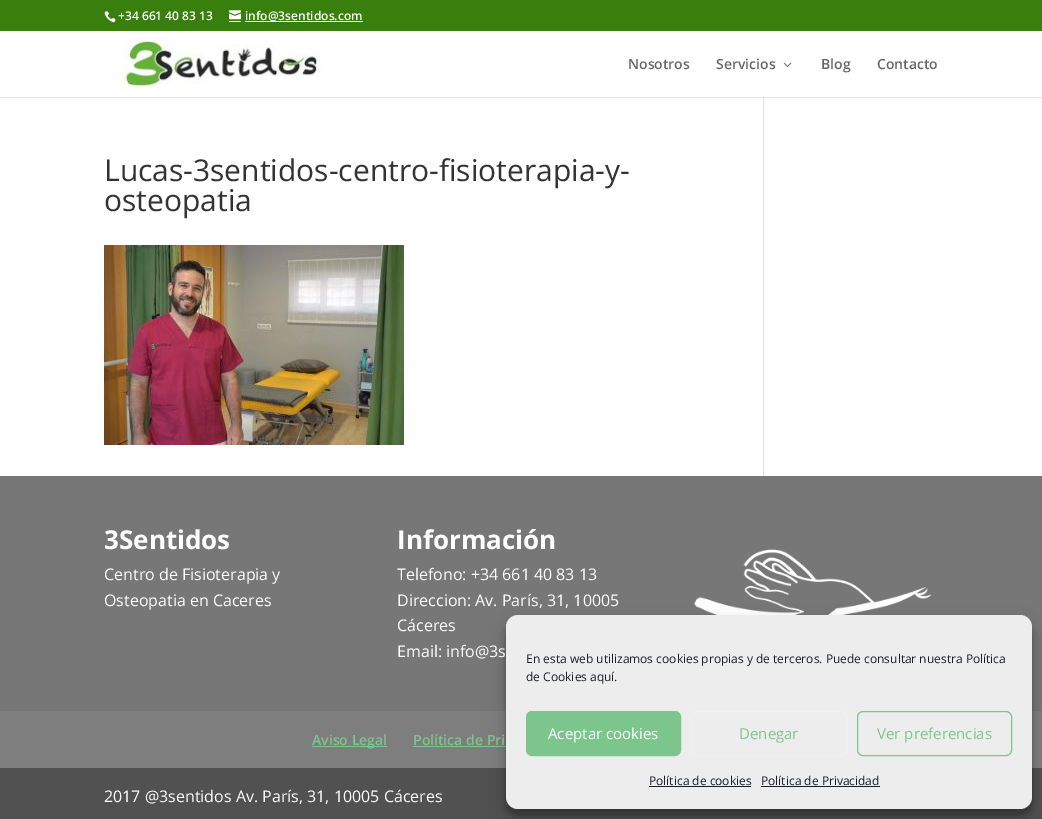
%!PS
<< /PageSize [1042 819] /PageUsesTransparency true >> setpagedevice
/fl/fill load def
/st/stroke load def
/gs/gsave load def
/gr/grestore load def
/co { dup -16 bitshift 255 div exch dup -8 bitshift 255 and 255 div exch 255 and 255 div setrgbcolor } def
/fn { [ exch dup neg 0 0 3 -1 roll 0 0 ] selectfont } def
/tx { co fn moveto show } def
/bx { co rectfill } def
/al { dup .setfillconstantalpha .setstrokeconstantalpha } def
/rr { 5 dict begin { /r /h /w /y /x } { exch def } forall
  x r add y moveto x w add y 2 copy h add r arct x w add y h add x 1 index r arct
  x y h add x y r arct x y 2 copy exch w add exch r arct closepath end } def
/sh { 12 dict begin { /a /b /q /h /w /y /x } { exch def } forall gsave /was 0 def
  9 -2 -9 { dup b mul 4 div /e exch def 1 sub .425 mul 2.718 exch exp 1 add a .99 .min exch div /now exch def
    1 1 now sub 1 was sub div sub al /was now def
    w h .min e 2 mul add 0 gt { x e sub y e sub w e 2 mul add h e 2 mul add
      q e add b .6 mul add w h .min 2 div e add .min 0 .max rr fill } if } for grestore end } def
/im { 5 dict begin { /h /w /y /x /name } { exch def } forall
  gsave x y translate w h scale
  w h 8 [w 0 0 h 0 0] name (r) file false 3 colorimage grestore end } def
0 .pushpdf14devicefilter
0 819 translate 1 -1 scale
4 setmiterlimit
0 0 1042 819 16#FFFFFF bx
0 97 1042 1 16#E6E6E6 bx
0 0 1042 31 16#397F0E bx
(media/1.raw) 104 11 12 12 im
(media/2.raw) 229 10 12 10 im
229 21 12 1 16#FFFFFF bx
245 21 118 1 16#FFFFFF bx
(media/3.raw) 123 37 198 54 im
(media/4.raw) 783 62 9 5 im
(media/5.raw) 104 245 300 200 im
763 97 1 379 16#E2E2E2 bx
763 97 1 1 16#CBCBCB bx
0 476 1042 235 16#777777 bx
(media/6.raw) 694 549 238 66 im
0 711 1042 57 16#7E7E7E bx
312 746 75 1 16#7CC68D bx
413 746 93 1 16#7CC68D bx
0 768 1042 51 16#515151 bx
16#000000 co
506 621 526 194 12 3 .23 sh
506 625 526 194 12 10 .19 sh
16#EDEDED co
506 615 526 194 12 rr fl
16#7CC68D co
526.5 711.5 154 44 5.5 rr gs fl gr
st
16#F1F1F1 co
691.5 711.5 155 44 5.5 rr st
16#7CC68D co
857.5 711.5 154 44 5.5 rr st
649 786 102 1 16#191E23 bx
761 786 119 1 16#191E23 bx
(+34 661 40 83 13) 118 20 /OpenSans-SemiBold 12 16#FFFFFF tx
(info@3sentidos.com) 245 20 /OpenSans-SemiBold 12 16#FFFFFF tx
(Nosotros) 628 69 /OpenSans-SemiBold 14 16#666666 tx
(Servicios) 716 69 /OpenSans-SemiBold 14 16#666666 tx
(Blog) 821 69 /OpenSans-SemiBold 14 16#666666 tx
(Contacto) 877 69 /OpenSans-SemiBold 14 16#666666 tx
(Lucas-3sentidos-centro-fisioterapia-y-) 104 181 /OpenSans-Regular 30 16#333333 tx
(osteopatia) 104 211 /OpenSans-Regular 30 16#333333 tx
(3Sentidos) 104 549 /OpenSans-Bold 26 16#FFFFFF tx
(Centro de Fisioterapia y) 104 580 /OpenSans-Regular 16 16#FFFFFF tx
(Osteopatia en Caceres) 104 606 /OpenSans-Regular 16 16#FFFFFF tx
(Información) 397 549 /OpenSans-Bold 26 16#FFFFFF tx
(Telefono: +34 661 40 83 13) 397 580 /OpenSans-Regular 16 16#FFFFFF tx
(Direccion: Av. París, 31, 10005) 397 606 /OpenSans-Regular 16 16#FFFFFF tx
(Cáceres) 397 631 /OpenSans-Regular 16 16#FFFFFF tx
(Email: info@3s) 397 657 /OpenSans-Regular 16 16#FFFFFF tx
(Aviso Legal) 312 745 /OpenSans-SemiBold 14 16#7CC68D tx
(Política de Pri) 413 745 /OpenSans-SemiBold 14 16#7CC68D tx
(2017 @3sentidos Av. París, 31, 10005 Cáceres) 104 802 /OpenSans-Regular 16 16#FFFFFF tx
(En esta web utilizamos cookies propias y de terceros. Puede consultar nuestra Política) 526 663 /OpenSans-Regular 12 16#191E23 tx
(de Cookies aquí.) 526 681 /OpenSans-Regular 12 16#191E23 tx
(Aceptar cookies) 548 739 /OpenSans-Regular 15 16#FFFFFF tx
(Denegar) 739 739 /OpenSans-Regular 15 16#7CC68D tx
(Ver preferencias) 877 739 /OpenSans-Regular 15 16#7CC68D tx
(Política de cookies) 649 785 /OpenSans-Regular 12 16#191E23 tx
(Política de Privacidad) 761 785 /OpenSans-Regular 12 16#191E23 tx
.poppdf14devicefilter showpage
